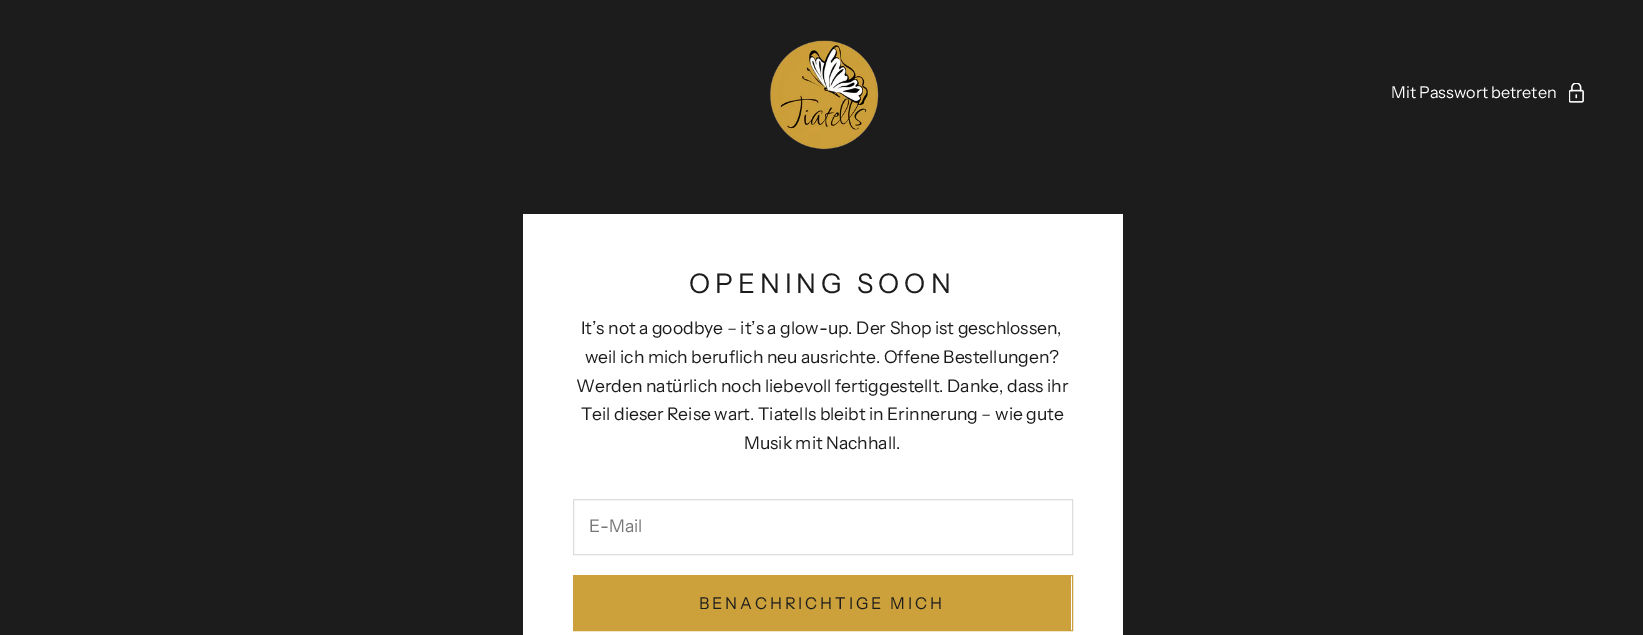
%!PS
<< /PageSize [1643 635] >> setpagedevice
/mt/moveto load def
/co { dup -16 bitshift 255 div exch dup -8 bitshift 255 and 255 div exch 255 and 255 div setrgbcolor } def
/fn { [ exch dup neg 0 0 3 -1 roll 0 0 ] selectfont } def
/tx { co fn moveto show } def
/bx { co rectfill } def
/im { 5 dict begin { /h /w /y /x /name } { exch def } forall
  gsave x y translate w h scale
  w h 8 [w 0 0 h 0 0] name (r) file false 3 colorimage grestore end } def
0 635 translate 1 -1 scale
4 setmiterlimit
0 0 1643 635 16#1C1C1C bx
(media/1.raw) 770 40 109 110 im
(media/2.raw) 1569 83 15 20 im
523 214 600 421 16#FFFFFF bx
16#DDDDDD co
573.5 499.5 499 55 rectstroke
574 576 497 54 16#CCA13B bx
573.5 575.5 499 55 rectstroke
(Mit Passwort betreten) 1391 98 /InstrumentSans-Regular 16.25 16#FFFFFF tx
/InstrumentSans-Regular 27 fn
16#1C1C1C co
689 293 mt 4.9 0 (OPENING SOON) ashow
(It’s not a goodbye – it’s a glow-up. Der Shop ist geschlossen,) 581 334 /InstrumentSans-Regular 17.5 16#1C1C1C tx
(weil ich mich beruflich neu ausrichte. Offene Bestellungen?) 585 363 /InstrumentSans-Regular 17.5 16#1C1C1C tx
(Werden natürlich noch liebevoll fertiggestellt. Danke, dass ihr) 576 392 /InstrumentSans-Regular 17.5 16#1C1C1C tx
(Teil dieser Reise wart. Tiatells bleibt in Erinnerung – wie gute) 581 420 /InstrumentSans-Regular 17.5 16#1C1C1C tx
(Musik mit Nachhall.) 744 449 /InstrumentSans-Regular 17.5 16#1C1C1C tx
(E-Mail) 589 532 /InstrumentSans-Regular 17.5 16#777777 tx
/InstrumentSans-Regular 16.25 fn
16#1C1C1C co
699 609 mt 2.9 0 (BENACHRICHTIGE MICH) ashow
showpage
